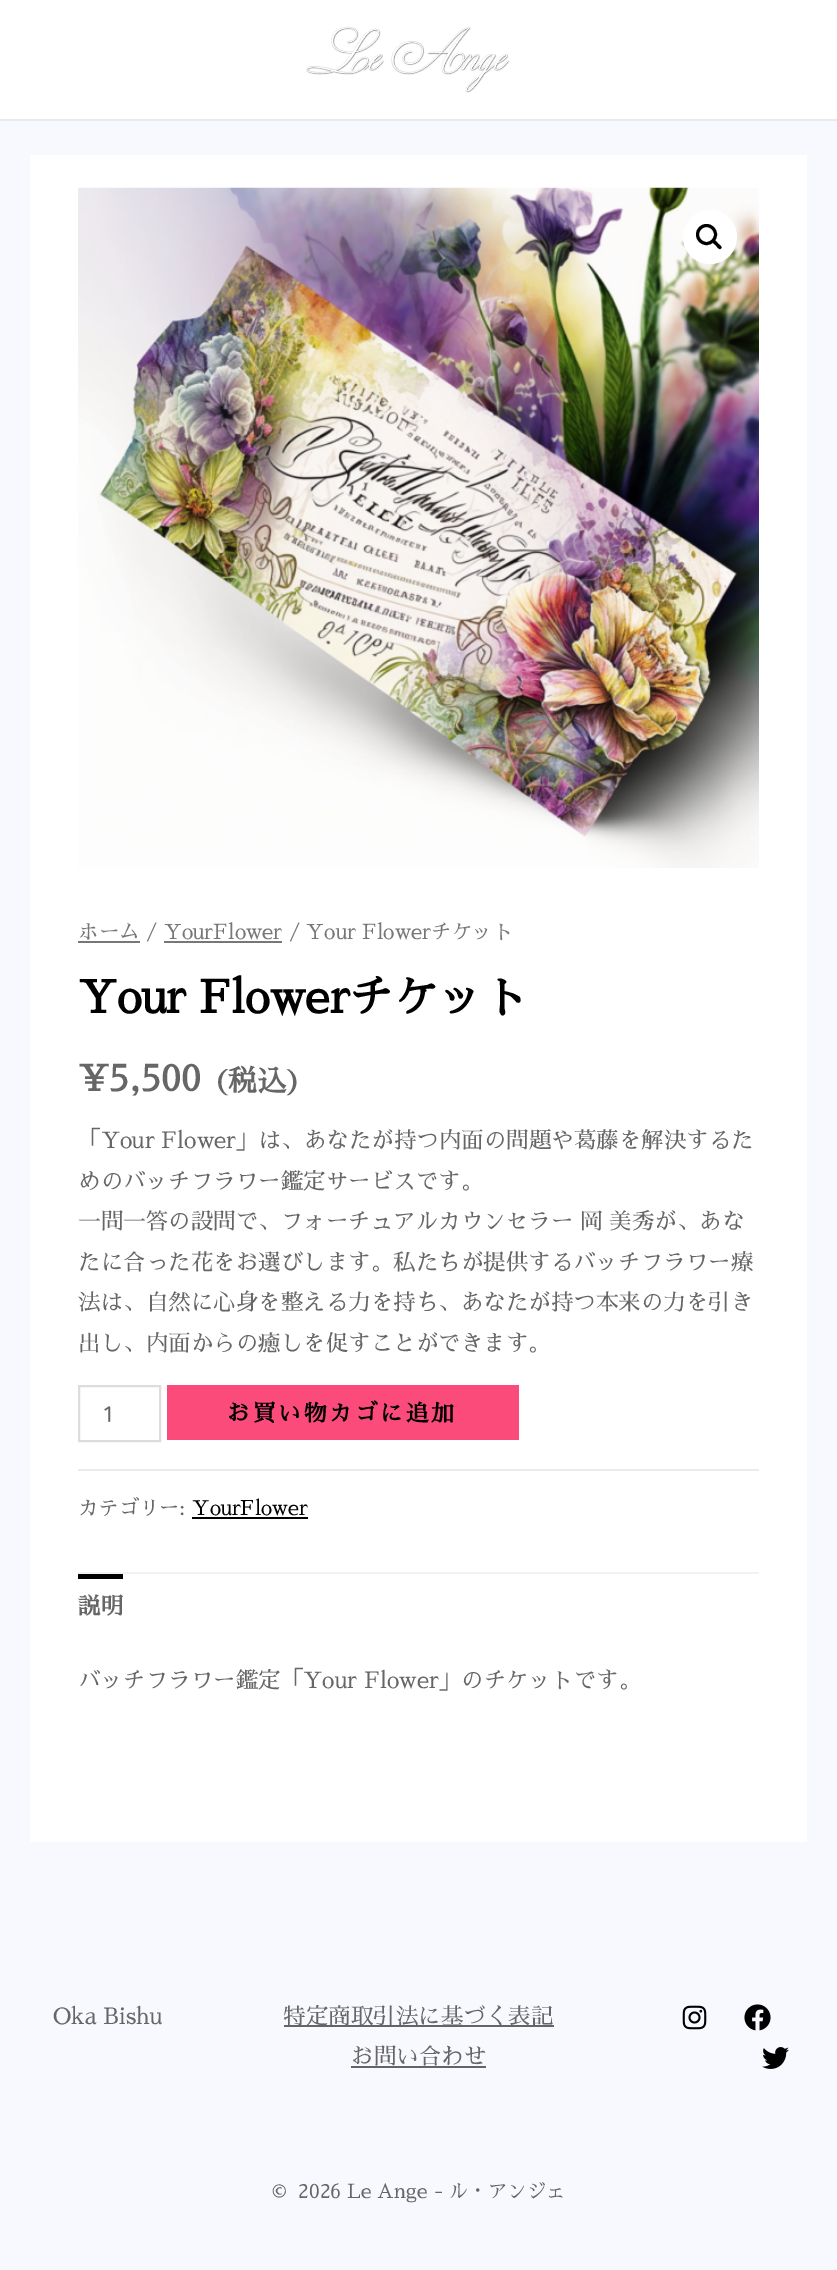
%!PS
<< /PageSize [837 2270] >> setpagedevice
/mt/moveto load def
/ct/curveto load def
/cp/closepath load def
/fl/fill load def
/st/stroke load def
/lw/setlinewidth load def
/co { dup -16 bitshift 255 div exch dup -8 bitshift 255 and 255 div exch 255 and 255 div setrgbcolor } def
/fn { [ exch dup neg 0 0 3 -1 roll 0 0 ] selectfont } def
/tx { co fn moveto show } def
/bx { co rectfill } def
/ci { newpath 0 360 arc closepath } def
/im { 5 dict begin { /h /w /y /x /name } { exch def } forall
  gsave x y translate w h scale
  w h 8 [w 0 0 h 0 0] name (r) file false 3 colorimage grestore end } def
0 2270 translate 1 -1 scale
4 setmiterlimit
0 0 837 2270 16#F8F8FF bx
0 0 837 119 16#FFFFFF bx
0 119 837 2 16#EAEAEA bx
(media/1.raw) 306 26 204 67 im
30 155 777 1687 16#FFFFFF bx
(media/2.raw) 78 187 681 681 im
710 237 27 ci fl
16#000000 co
3 lw
706.5 234.5 9 ci st
712.5 240.5 mt 714.5 238.5 717 242.5 718 243.5 ct 719 244.5 723 247 721 248.5 ct 719.5 250.5 716.5 246.5 716 245.5 ct 715 244.5 711 242 712.5 240.5 ct cp fl
78 941 62 2 16#777777 bx
164 941 118 2 16#777777 bx
16#DDDDDD co
2 lw
79 1386 81 55 rectstroke
167 1385 352 55 16#FB4B7A bx
78 1469 681 2 16#EBEBEB bx
192 1517 116 2 16#000000 bx
78 1572 681 2 16#F2F2F2 bx
78 1574 45 5 16#000000 bx
284 2025 270 2 16#646467 bx
351 2066 135 2 16#646467 bx
(media/3.raw) 682 2005 25 25 im
(media/4.raw) 744 2004 27 27 im
(media/5.raw) 762 2047 27 22 im
(ホーム / YourFlower / Your Flowerチケット) 78 939 /SawarabiMincho-Regular 20.7 16#777777 tx
(Your Flowerチケット) 78 1013 /SawarabiMincho-Bold 45 16#000000 tx
(¥5,500) 78 1091 /SawarabiMincho-Bold 36 16#666666 tx
(\(税込\)) 212 1091 /SawarabiMincho-Bold 29 16#666666 tx
(「Your Flower」は、あなたが持つ内面の問題や葛藤を解決するた) 78 1148 /SawarabiMincho-Regular 22.5 16#666666 tx
(めのバッチフラワー鑑定サービスです。) 78 1189 /SawarabiMincho-Regular 22.5 16#666666 tx
(一問一答の設問で、フォーチュアルカウンセラー 岡 美秀が、あな) 78 1229 /SawarabiMincho-Regular 22.5 16#666666 tx
(たに合った花をお選びします。私たちが提供するバッチフラワー療) 78 1270 /SawarabiMincho-Regular 22.5 16#666666 tx
(法は、自然に心身を整える力を持ち、あなたが持つ本来の力を引き) 78 1310 /SawarabiMincho-Regular 22.5 16#666666 tx
(出し、内面からの癒しを促すことができます。) 78 1351 /SawarabiMincho-Regular 22.5 16#666666 tx
(1) 104 1422 /Quicksand-Medium 22.5 16#666666 tx
/SawarabiMincho-Bold 22.5 fn
16#000000 co
227 1421 mt 3 0 (お買い物カゴに追加) ashow
(カテゴリー:) 78 1515 /SawarabiMincho-Regular 20.25 16#666666 tx
(YourFlower) 192 1515 /SawarabiMincho-Regular 20.25 16#000000 tx
(説明) 78 1614 /SawarabiMincho-Bold 22.5 16#666666 tx
(バッチフラワー鑑定「Your Flower」のチケットです。) 78 1688 /SawarabiMincho-Regular 22.5 16#666666 tx
(Oka Bishu) 53 2024 /SawarabiMincho-Regular 22.5 16#666666 tx
(特定商取引法に基づく表記) 283 2024 /SawarabiMincho-Regular 22.5 16#666666 tx
(お問い合わせ) 351 2064 /SawarabiMincho-Regular 22.5 16#666666 tx
(©  2026 Le Ange - ル・アンジェ) 272 2198 /SawarabiMincho-Regular 19.5 16#666666 tx
showpage
